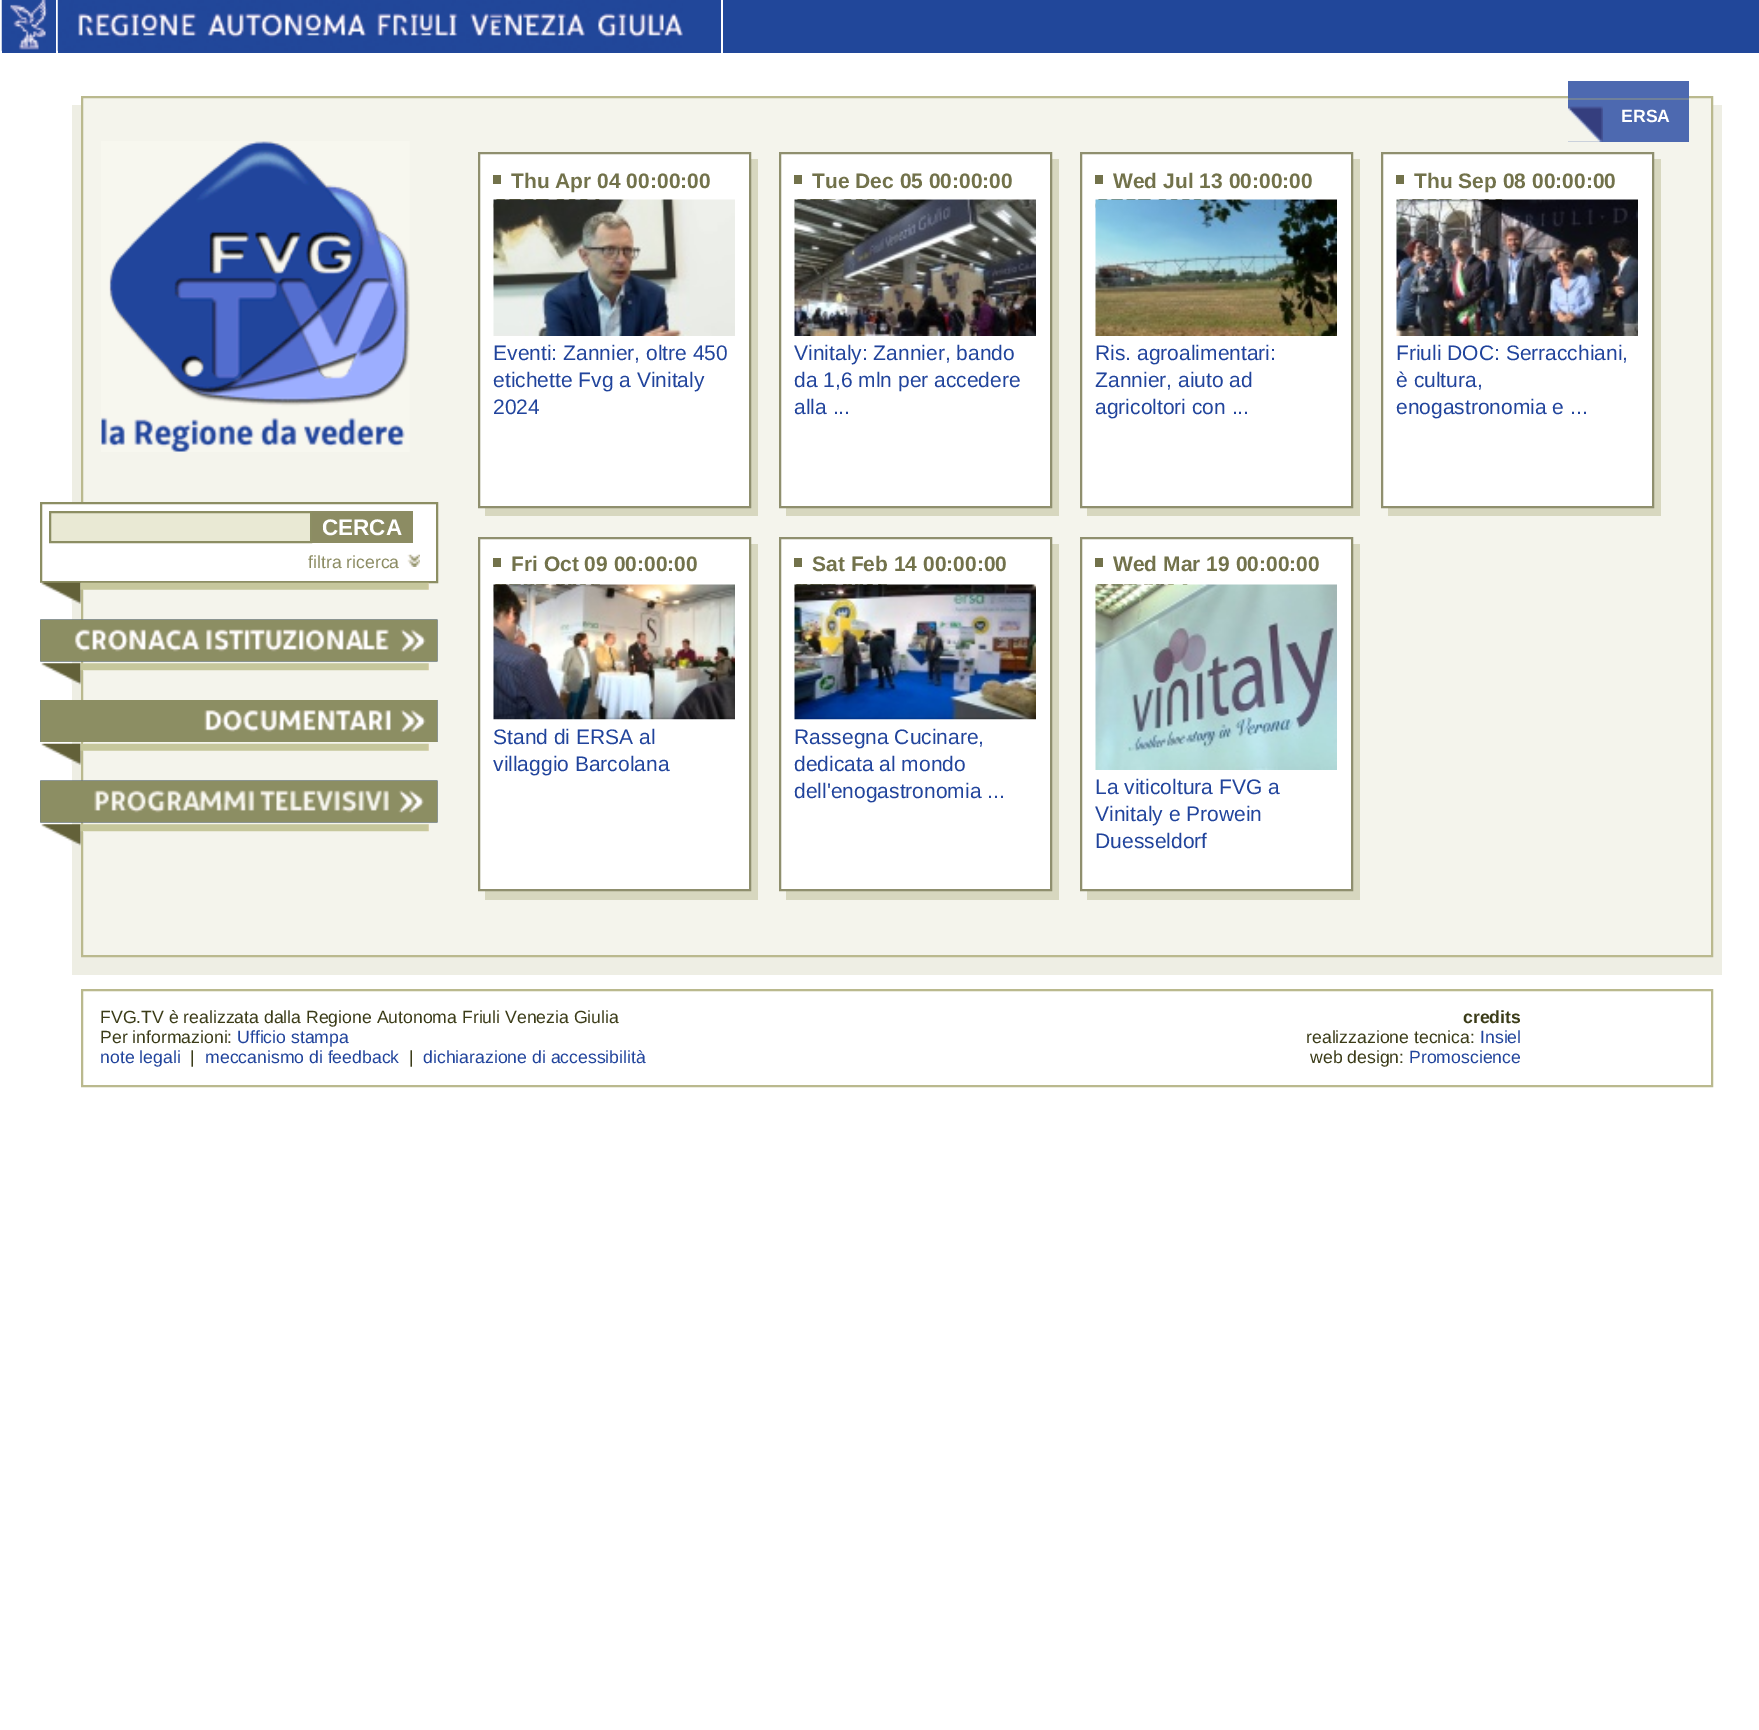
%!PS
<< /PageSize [1759 1730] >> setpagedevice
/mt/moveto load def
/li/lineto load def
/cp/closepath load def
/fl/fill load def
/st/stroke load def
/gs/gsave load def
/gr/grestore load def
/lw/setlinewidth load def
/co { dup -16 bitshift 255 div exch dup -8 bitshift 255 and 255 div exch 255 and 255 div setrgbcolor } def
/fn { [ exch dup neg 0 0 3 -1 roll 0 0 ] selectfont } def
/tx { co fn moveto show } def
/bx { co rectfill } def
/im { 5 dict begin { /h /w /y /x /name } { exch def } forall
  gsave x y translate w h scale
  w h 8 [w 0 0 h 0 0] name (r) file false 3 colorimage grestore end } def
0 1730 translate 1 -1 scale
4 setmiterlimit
0 0 1759 1730 16#FFFFFF bx
2 0 1757 53 16#21479A bx
56 0 2 58 16#FFFFFF bx
(media/1.raw) 1 0 47 51 im
721 0 2 58 16#FFFFFF bx
(media/2.raw) 57 0 626 51 im
72 105 1650 870 16#EEEEE4 bx
16#F4F4EC co
82 97 mt 1712 97 li 1712 956 li 82 956 li cp gs fl gr
16#BAB98E co
2 lw
st
(media/3.raw) 101 141 309 311 im
72 504 364 77 16#FFFFFF bx
16#8C8E63 co
41 503 396 79 rectstroke
16#E9E9D4 co
50 512 mt 311 512 li 311 542 li 50 542 li cp gs fl gr
16#8C8E63 co
st
312 511 101 32 16#8C8C63 bx
(media/4.raw) 407 554 13 13 im
(media/5.raw) 40 582 41 22 im
(media/6.raw) 80 582 349 8 im
(media/7.raw) 40 619 398 43 im
(media/8.raw) 40 619 398 43 im
(media/9.raw) 41 663 40 22 im
(media/10.raw) 80 663 349 8 im
(media/11.raw) 40 700 398 42 im
(media/12.raw) 40 700 398 42 im
(media/13.raw) 41 743 40 22 im
(media/14.raw) 80 743 349 8 im
(media/15.raw) 40 780 398 43 im
(media/16.raw) 40 780 398 43 im
(media/9.raw) 41 824 40 22 im
(media/10.raw) 80 824 349 8 im
1568 81 121 61 16#4D69B0 bx
1568 98 121 2 16#70819A bx
(media/17.raw) 1568 106 35 36 im
485 159 273 357 16#D7D7BF bx
16#FFFFFF co
479 153 mt 750 153 li 750 507 li 479 507 li cp gs fl gr
16#8F8F6E co
st
493 175 8 9 16#72724B bx
(media/18.raw) 493 199 242 137 im
786 159 273 357 16#D7D7BF bx
16#FFFFFF co
780 153 mt 1051 153 li 1051 507 li 780 507 li cp gs fl gr
16#8F8F6E co
st
794 175 8 9 16#72724B bx
(media/19.raw) 794 199 242 137 im
1087 159 273 357 16#D7D7BF bx
16#FFFFFF co
1081 153 mt 1352 153 li 1352 507 li 1081 507 li cp gs fl gr
16#8F8F6E co
st
1095 175 8 9 16#72724B bx
(media/20.raw) 1095 199 242 137 im
1388 159 273 357 16#D7D7BF bx
16#FFFFFF co
1382 153 mt 1653 153 li 1653 507 li 1382 507 li cp gs fl gr
16#8F8F6E co
st
1396 175 8 9 16#72724B bx
(media/21.raw) 1396 199 242 137 im
485 544 273 356 16#D7D7BF bx
16#FFFFFF co
479 538 mt 750 538 li 750 890 li 479 890 li cp gs fl gr
16#8F8F6E co
st
493 558 8 9 16#72724B bx
(media/22.raw) 493 584 242 136 im
786 544 273 356 16#D7D7BF bx
16#FFFFFF co
780 538 mt 1051 538 li 1051 890 li 780 890 li cp gs fl gr
16#8F8F6E co
st
794 558 8 9 16#72724B bx
(media/23.raw) 794 584 242 136 im
1087 544 273 356 16#D7D7BF bx
16#FFFFFF co
1081 538 mt 1352 538 li 1352 890 li 1081 890 li cp gs fl gr
16#8F8F6E co
st
1095 558 8 9 16#72724B bx
(media/24.raw) 1095 584 242 186 im
16#BAB98E co
82 990 1630 96 rectstroke
(CERCA) 322 535 /LiberationSans-Bold 22.5 16#FFFFFF tx
(filtra ricerca) 308 568 /LiberationSans-Regular 17.65 16#8C8C63 tx
(ERSA) 1621 122 /LiberationSans-Bold 17.65 16#FFFFFF tx
(Thu Apr 04 00:00:00) 511 188 /LiberationSans-Bold 21 16#72724B tx
(Eventi: Zannier, oltre 450) 493 360 /LiberationSans-Regular 21 16#21449C tx
(etichette Fvg a Vinitaly) 493 387 /LiberationSans-Regular 21 16#21449C tx
(2024) 493 414 /LiberationSans-Regular 21 16#21449C tx
(Tue Dec 05 00:00:00) 812 188 /LiberationSans-Bold 21 16#72724B tx
(Vinitaly: Zannier, bando) 794 360 /LiberationSans-Regular 21 16#21449C tx
(da 1,6 mln per accedere) 794 387 /LiberationSans-Regular 21 16#21449C tx
(alla ...) 794 414 /LiberationSans-Regular 21 16#21449C tx
(Wed Jul 13 00:00:00) 1113 188 /LiberationSans-Bold 21 16#72724B tx
(Ris. agroalimentari:) 1095 360 /LiberationSans-Regular 21 16#21449C tx
(Zannier, aiuto ad) 1095 387 /LiberationSans-Regular 21 16#21449C tx
(agricoltori con ...) 1095 414 /LiberationSans-Regular 21 16#21449C tx
(Thu Sep 08 00:00:00) 1414 188 /LiberationSans-Bold 21 16#72724B tx
(Friuli DOC: Serracchiani,) 1396 360 /LiberationSans-Regular 21 16#21449C tx
(è cultura,) 1396 387 /LiberationSans-Regular 21 16#21449C tx
(enogastronomia e ...) 1396 414 /LiberationSans-Regular 21 16#21449C tx
(Fri Oct 09 00:00:00) 511 571 /LiberationSans-Bold 21 16#72724B tx
(Stand di ERSA al) 493 744 /LiberationSans-Regular 21 16#21449C tx
(villaggio Barcolana) 493 771 /LiberationSans-Regular 21 16#21449C tx
(Sat Feb 14 00:00:00) 812 571 /LiberationSans-Bold 21 16#72724B tx
(Rassegna Cucinare,) 794 744 /LiberationSans-Regular 21 16#21449C tx
(dedicata al mondo) 794 771 /LiberationSans-Regular 21 16#21449C tx
(dell'enogastronomia ...) 794 798 /LiberationSans-Regular 21 16#21449C tx
(Wed Mar 19 00:00:00) 1113 571 /LiberationSans-Bold 21 16#72724B tx
(La viticoltura FVG a) 1095 794 /LiberationSans-Regular 21 16#21449C tx
(Vinitaly e Prowein) 1095 821 /LiberationSans-Regular 21 16#21449C tx
(Duesseldorf) 1095 848 /LiberationSans-Regular 21 16#21449C tx
(FVG.TV è realizzata dalla Regione Autonoma Friuli Venezia Giulia) 100 1023 /LiberationSans-Regular 17.65 16#3B3C18 tx
(Per informazioni:) 100 1043 /LiberationSans-Regular 17.65 16#3B3C18 tx
(Ufficio stampa) 237 1043 /LiberationSans-Regular 17.65 16#21449C tx
(note legali) 100 1063 /LiberationSans-Regular 17.65 16#21449C tx
(|) 190 1063 /LiberationSans-Regular 17.65 16#3B3C18 tx
(meccanismo di feedback) 205 1063 /LiberationSans-Regular 17.65 16#21449C tx
(|) 409 1063 /LiberationSans-Regular 17.65 16#3B3C18 tx
(dichiarazione di accessibilità) 423 1063 /LiberationSans-Regular 17.65 16#21449C tx
(credits) 1463 1023 /LiberationSans-Bold 17.65 16#3B3C18 tx
(realizzazione tecnica:) 1306 1043 /LiberationSans-Regular 17.65 16#3B3C18 tx
(Insiel) 1480 1043 /LiberationSans-Regular 17.65 16#21449C tx
(web design:) 1310 1063 /LiberationSans-Regular 17.65 16#3B3C18 tx
(Promoscience) 1409 1063 /LiberationSans-Regular 17.65 16#21449C tx
showpage
